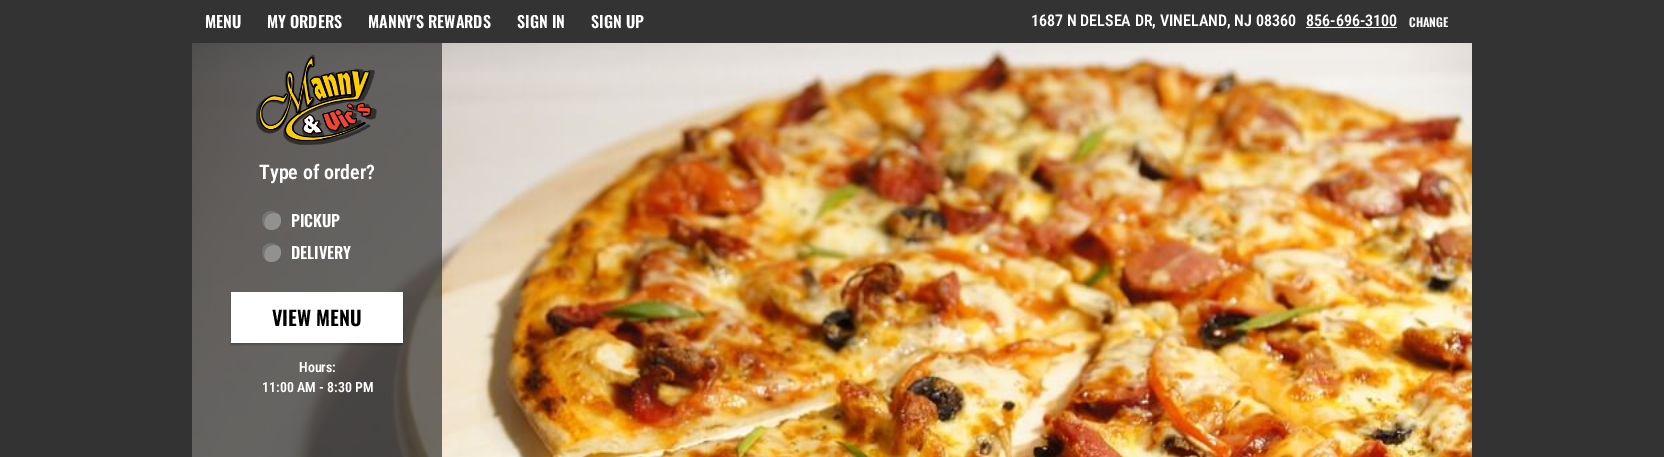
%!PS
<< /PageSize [1664 457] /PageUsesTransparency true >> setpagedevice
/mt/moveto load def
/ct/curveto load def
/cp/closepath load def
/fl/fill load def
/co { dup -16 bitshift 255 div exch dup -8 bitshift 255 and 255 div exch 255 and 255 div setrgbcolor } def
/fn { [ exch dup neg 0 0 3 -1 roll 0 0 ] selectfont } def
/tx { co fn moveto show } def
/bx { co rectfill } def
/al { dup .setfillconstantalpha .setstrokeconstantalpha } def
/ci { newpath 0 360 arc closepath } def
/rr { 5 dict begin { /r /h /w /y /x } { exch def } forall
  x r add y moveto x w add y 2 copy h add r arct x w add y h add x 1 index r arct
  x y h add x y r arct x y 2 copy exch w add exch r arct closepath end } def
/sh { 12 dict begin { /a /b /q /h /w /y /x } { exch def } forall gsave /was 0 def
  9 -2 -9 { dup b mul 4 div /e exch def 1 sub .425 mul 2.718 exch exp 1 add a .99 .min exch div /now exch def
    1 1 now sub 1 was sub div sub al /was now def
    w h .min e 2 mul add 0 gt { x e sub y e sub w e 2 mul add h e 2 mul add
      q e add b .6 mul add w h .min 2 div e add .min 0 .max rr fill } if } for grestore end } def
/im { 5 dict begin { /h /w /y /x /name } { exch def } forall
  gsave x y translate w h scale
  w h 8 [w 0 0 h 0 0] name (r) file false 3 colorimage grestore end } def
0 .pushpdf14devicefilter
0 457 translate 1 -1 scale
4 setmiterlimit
0 0 1664 457 16#333333 bx
1306 27 91 1 16#FFFFFF bx
(media/1.raw) 192 43 1280 414 im
0.7 al
192 43 250 414 16#333333 bx
1 al
(media/2.raw) 256 55 121 90 im
16#919190 co
271.5 220.5 9.5 ci fl
0.2 al
16#000000 co
274 213 mt 276 213 277.5 213.5 278.5 214 ct 269 204 254.5 220.5 266 228.5 ct 262 223 264.5 213 274 213 ct cp fl
1 al
16#919190 co
271.5 252.5 9.5 ci fl
0.2 al
16#000000 co
274 245 mt 276 245 277.5 245.5 278.5 246 ct 269 236 254.5 252.5 266 260.5 ct 262 255 264.5 245 274 245 ct cp fl
1 al
231 294 172 51 0 1 .2 sh
231 292 172 51 16#FFFFFF bx
(MENU) 205 28 /Oswald-SemiBold 16 16#FFFFFF tx
(MY ORDERS) 267 28 /Oswald-SemiBold 16 16#FFFFFF tx
(MANNY'S REWARDS) 368 28 /Oswald-SemiBold 16 16#FFFFFF tx
(SIGN IN) 517 28 /Oswald-SemiBold 16 16#FFFFFF tx
(SIGN UP) 591 28 /Oswald-SemiBold 16 16#FFFFFF tx
(1687 N DELSEA DR, VINELAND, NJ 08360) 1031 26 /RobotoCondensed-SemiBold 16 16#FFFFFF tx
(856-696-3100) 1306 26 /RobotoCondensed-SemiBold 16 16#FFFFFF tx
(CHANGE) 1409 27 /Oswald-SemiBold 12 16#FFFFFF tx
(Type of order?) 259 179 /RobotoCondensed-SemiBold 20 16#FFFFFF tx
(PICKUP) 291 227 /Oswald-SemiBold 16 16#FFFFFF tx
(DELIVERY) 291 259 /Oswald-SemiBold 16 16#FFFFFF tx
(VIEW MENU) 272 326 /Oswald-SemiBold 20 16#000000 tx
(Hours:) 299 372 /RobotoCondensed-SemiBold 14 16#FFFFFF tx
(11:00 AM - 8:30 PM) 262 392 /RobotoCondensed-SemiBold 14 16#FFFFFF tx
.poppdf14devicefilter showpage
